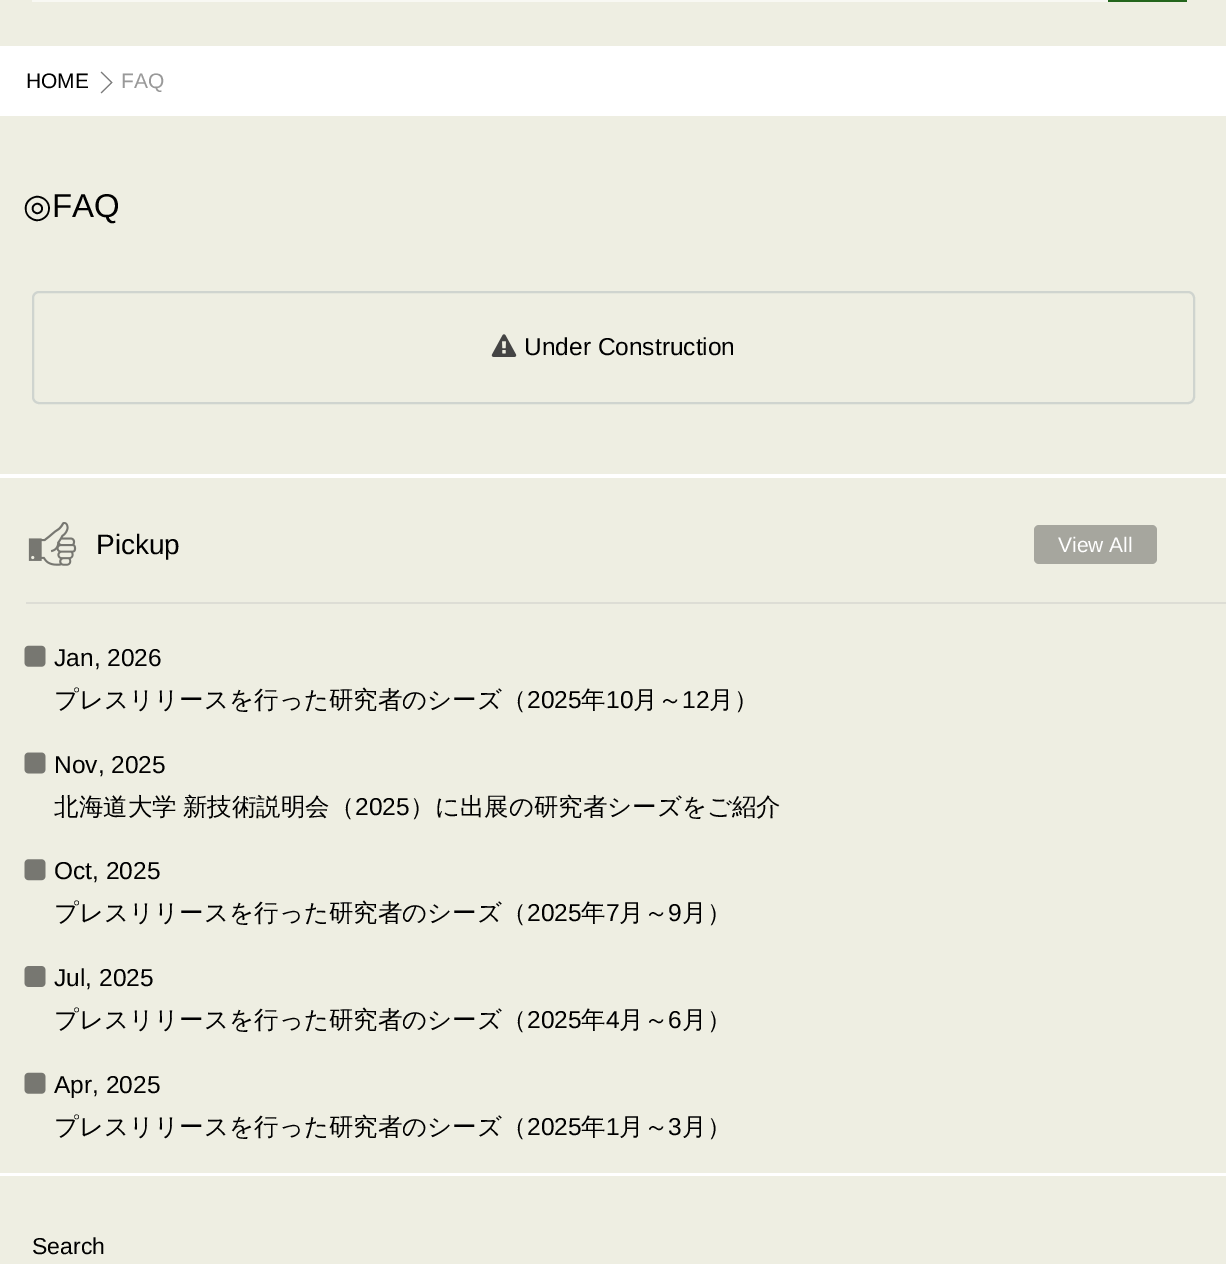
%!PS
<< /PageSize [1226 1264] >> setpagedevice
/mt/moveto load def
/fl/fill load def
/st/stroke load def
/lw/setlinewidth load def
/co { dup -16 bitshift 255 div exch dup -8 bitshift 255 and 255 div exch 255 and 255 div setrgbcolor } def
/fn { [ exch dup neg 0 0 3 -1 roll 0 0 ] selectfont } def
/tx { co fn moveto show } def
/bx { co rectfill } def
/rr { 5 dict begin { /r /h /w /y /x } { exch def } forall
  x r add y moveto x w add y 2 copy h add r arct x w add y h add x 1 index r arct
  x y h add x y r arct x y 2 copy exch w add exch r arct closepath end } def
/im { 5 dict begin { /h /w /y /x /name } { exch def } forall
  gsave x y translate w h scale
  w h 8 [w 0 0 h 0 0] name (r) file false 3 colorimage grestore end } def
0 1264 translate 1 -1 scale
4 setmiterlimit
0 0 1226 1264 16#FFFFFF bx
0 0 1226 46 16#EEEEE2 bx
32 0 1076 2 16#F8F8F3 bx
1108 0 79 2 16#23651C bx
(media/1.raw) 100 71 13 23 im
0 116 1226 358 16#EEEEE2 bx
16#CFD4CF co
2 lw
33 292 1161 111 6 rr st
(media/2.raw) 491 334 26 23 im
0 478 1226 695 16#EEEEE2 bx
26 602 1200 2 16#DDDDD5 bx
(media/3.raw) 28 522 49 44 im
16#A6A69E co
1034 525 123 39 5 rr fl
(media/4.raw) 24 645 22 22 im
(media/5.raw) 24 752 22 22 im
(media/6.raw) 24 859 22 22 im
(media/7.raw) 24 966 22 21 im
(media/4.raw) 24 1072 22 22 im
0 1176 1226 88 16#EEEEE2 bx
(HOME) 26 88 /LiberationSans-Regular 21 16#000000 tx
(FAQ) 121 88 /LiberationSans-Regular 21 16#999999 tx
(◎) 23 217 /DejaVuSans-Regular 33 16#000000 tx
(FAQ) 52 217 /LiberationSans-Regular 33 16#000000 tx
(Under Construction) 524 355 /LiberationSans-Regular 24.5 16#000000 tx
(Pickup) 96 554 /LiberationSans-Regular 28 16#000000 tx
(View All) 1058 552 /LiberationSans-Regular 21 16#FFFFFF tx
(Jan, 2026) 54 666 /LiberationSans-Regular 24.5 16#000000 tx
(プレスリリースを行った研究者のシーズ（) 54 708 /WenQuanYiZenHei-Medium 24.5 16#000000 tx
(2025) 527 708 /LiberationSans-Regular 24.5 16#000000 tx
(年) 581 708 /WenQuanYiZenHei-Medium 24.5 16#000000 tx
(10) 606 708 /LiberationSans-Regular 24.5 16#000000 tx
(月～) 633 708 /WenQuanYiZenHei-Medium 24.5 16#000000 tx
(12) 682 708 /LiberationSans-Regular 24.5 16#000000 tx
(月）) 709 708 /WenQuanYiZenHei-Medium 24.5 16#000000 tx
(Nov, 2025) 54 773 /LiberationSans-Regular 24.5 16#000000 tx
/WenQuanYiZenHei-Medium 24.5 fn
54 815 mt -1 0 32 (北海道大学 新技術説明会（) widthshow
(2025) 355 815 /LiberationSans-Regular 24.5 16#000000 tx
(）に出展の研究者シーズをご紹介) 410 815 /WenQuanYiZenHei-Medium 24.5 16#000000 tx
(Oct, 2025) 54 879 /LiberationSans-Regular 24.5 16#000000 tx
(プレスリリースを行った研究者のシーズ（) 54 921 /WenQuanYiZenHei-Medium 24.5 16#000000 tx
(2025) 527 921 /LiberationSans-Regular 24.5 16#000000 tx
(年) 581 921 /WenQuanYiZenHei-Medium 24.5 16#000000 tx
(7) 606 921 /LiberationSans-Regular 24.5 16#000000 tx
(月～) 619 921 /WenQuanYiZenHei-Medium 24.5 16#000000 tx
(9) 668 921 /LiberationSans-Regular 24.5 16#000000 tx
(月）) 682 921 /WenQuanYiZenHei-Medium 24.5 16#000000 tx
(Jul, 2025) 54 986 /LiberationSans-Regular 24.5 16#000000 tx
(プレスリリースを行った研究者のシーズ（) 54 1028 /WenQuanYiZenHei-Medium 24.5 16#000000 tx
(2025) 527 1028 /LiberationSans-Regular 24.5 16#000000 tx
(年) 581 1028 /WenQuanYiZenHei-Medium 24.5 16#000000 tx
(4) 606 1028 /LiberationSans-Regular 24.5 16#000000 tx
(月～) 619 1028 /WenQuanYiZenHei-Medium 24.5 16#000000 tx
(6) 668 1028 /LiberationSans-Regular 24.5 16#000000 tx
(月）) 682 1028 /WenQuanYiZenHei-Medium 24.5 16#000000 tx
(Apr, 2025) 54 1093 /LiberationSans-Regular 24.5 16#000000 tx
(プレスリリースを行った研究者のシーズ（) 54 1135 /WenQuanYiZenHei-Medium 24.5 16#000000 tx
(2025) 527 1135 /LiberationSans-Regular 24.5 16#000000 tx
(年) 581 1135 /WenQuanYiZenHei-Medium 24.5 16#000000 tx
(1) 606 1135 /LiberationSans-Regular 24.5 16#000000 tx
(月～) 619 1135 /WenQuanYiZenHei-Medium 24.5 16#000000 tx
(3) 668 1135 /LiberationSans-Regular 24.5 16#000000 tx
(月）) 682 1135 /WenQuanYiZenHei-Medium 24.5 16#000000 tx
(Search) 32 1254 /LiberationSans-Regular 23 16#000000 tx
showpage
